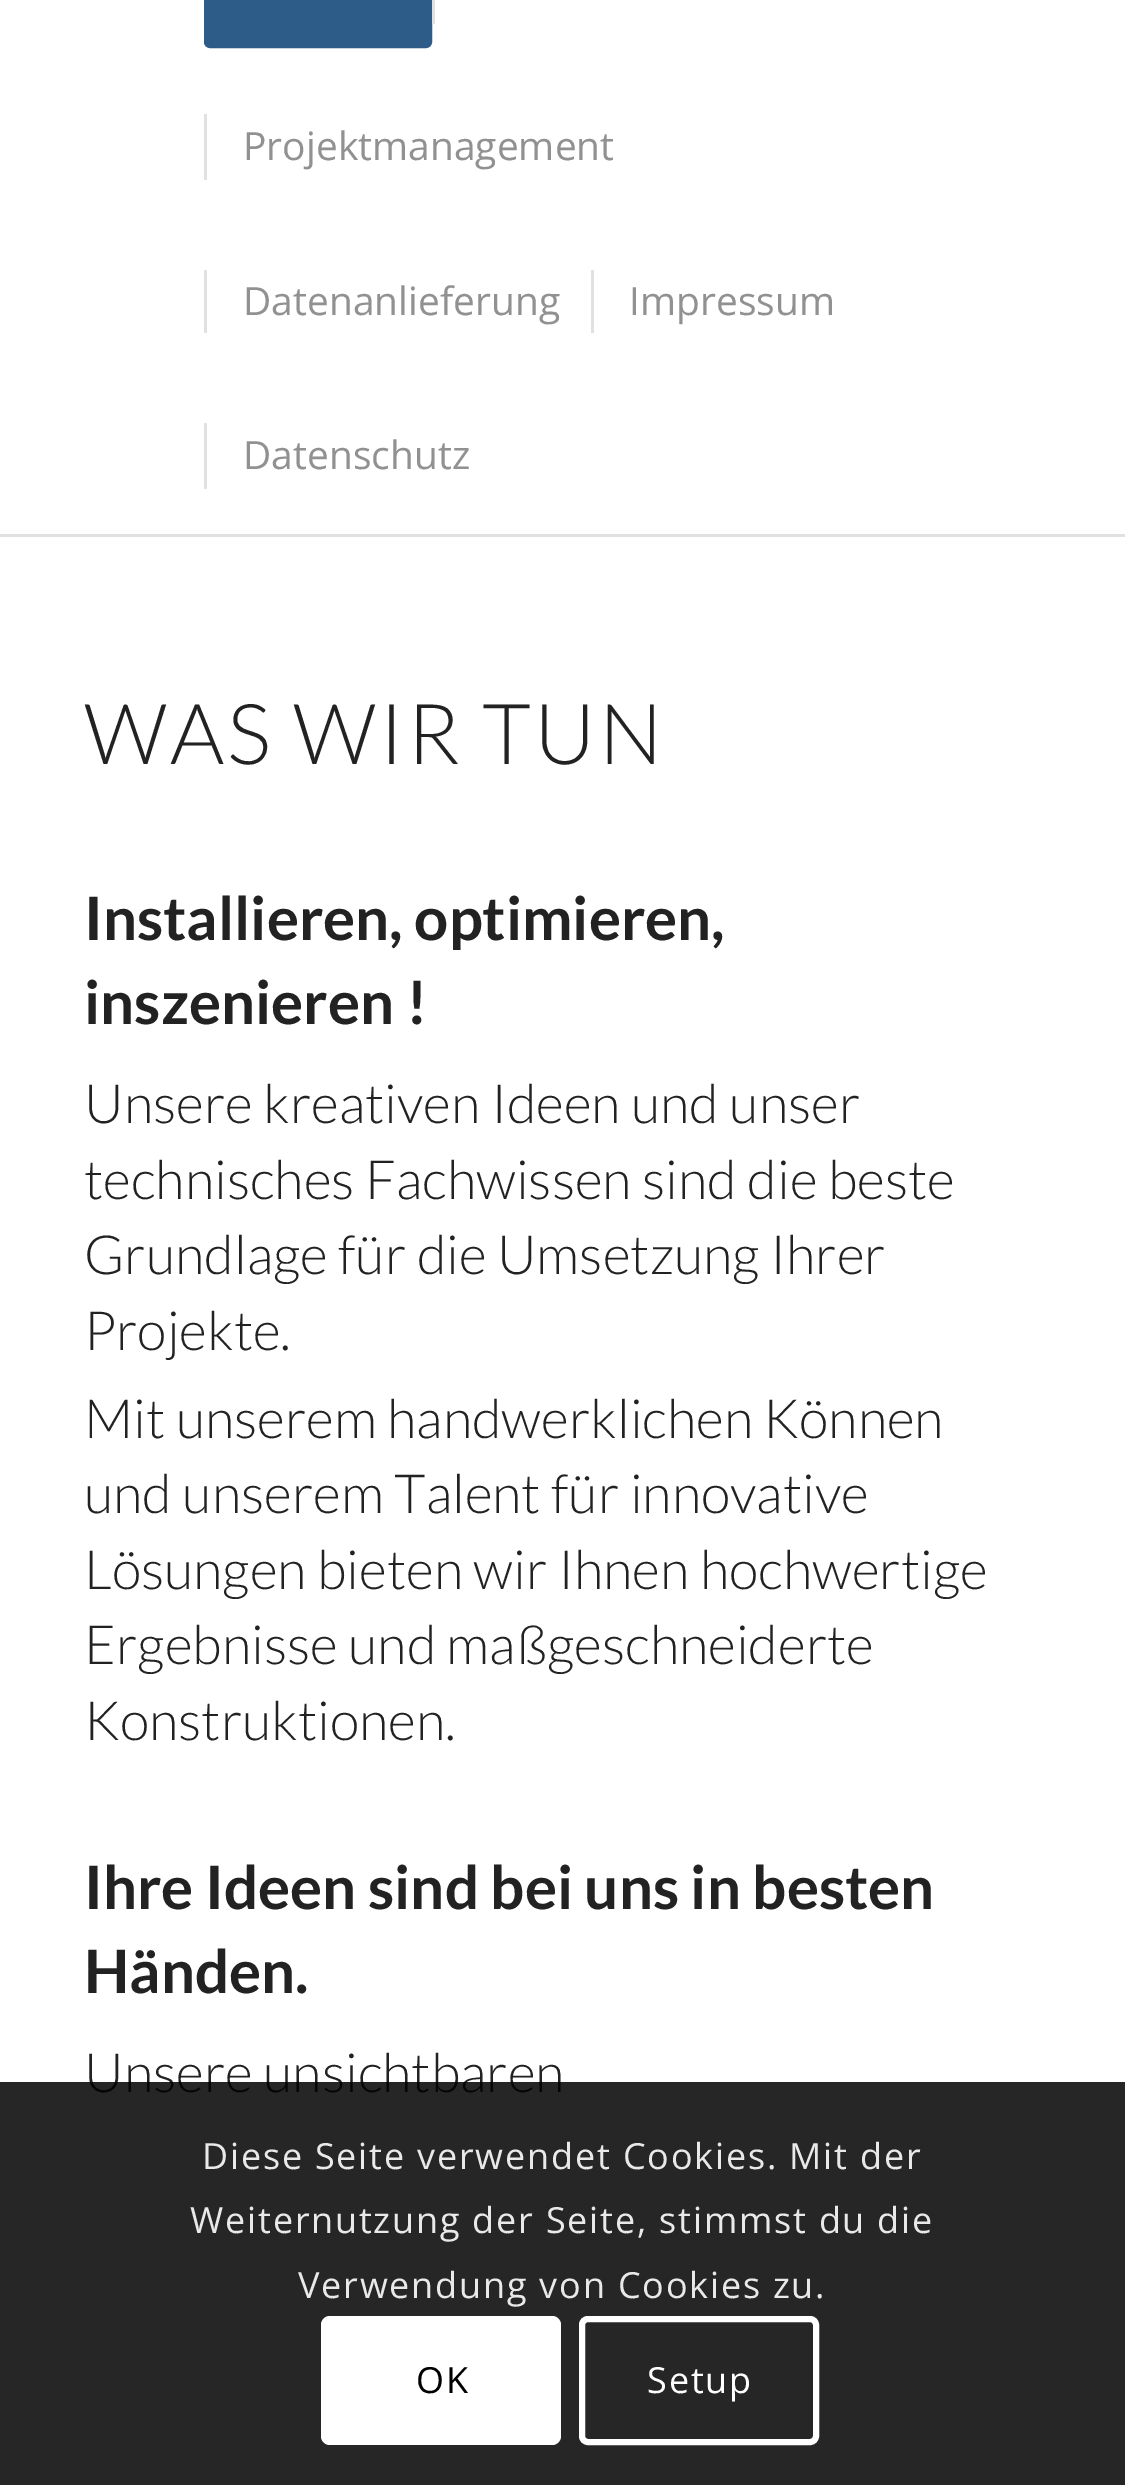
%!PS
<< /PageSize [1125 2485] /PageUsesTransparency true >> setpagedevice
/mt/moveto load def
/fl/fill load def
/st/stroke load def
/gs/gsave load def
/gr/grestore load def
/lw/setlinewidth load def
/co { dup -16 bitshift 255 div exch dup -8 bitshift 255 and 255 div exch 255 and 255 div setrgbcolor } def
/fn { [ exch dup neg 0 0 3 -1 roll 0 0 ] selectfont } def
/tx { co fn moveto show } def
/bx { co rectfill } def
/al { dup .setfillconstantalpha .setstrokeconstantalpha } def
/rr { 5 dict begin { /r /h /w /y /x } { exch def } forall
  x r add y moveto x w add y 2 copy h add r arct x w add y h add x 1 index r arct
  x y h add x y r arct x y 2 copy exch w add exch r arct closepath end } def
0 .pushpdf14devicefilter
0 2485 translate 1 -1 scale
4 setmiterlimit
0 0 1125 2485 16#FFFFFF bx
0 534 1125 3 16#E1E1E1 bx
16#2D5C88 co
205.5 -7.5 225 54 4.5 rr gs fl gr
3 lw
st
432 0 3 24 16#E1E1E1 bx
204 114 3 66 16#E1E1E1 bx
204 270 3 63 16#E1E1E1 bx
591 270 3 63 16#E1E1E1 bx
204 423 3 66 16#E1E1E1 bx
(Projektmanagement) 243 160 /OpenSans-Regular 39 16#919191 tx
(Datenanlieferung) 243 315 /OpenSans-Regular 39 16#919191 tx
(Impressum) 629 315 /OpenSans-Regular 39 16#919191 tx
(Datenschutz) 243 469 /OpenSans-Regular 39 16#919191 tx
/Lato-Light 84 fn
16#222222 co
84 764 mt 3 0 (WAS WIR TUN) ashow
(Installieren, optimieren,) 84 940 /Lato-Bold 60 16#222222 tx
(inszenieren !) 84 1024 /Lato-Bold 60 16#222222 tx
(Unsere kreativen Ideen und unser) 84 1123 /Lato-Light 54 16#222222 tx
(technisches Fachwissen sind die beste) 84 1199 /Lato-Light 54 16#222222 tx
(Grundlage für die Umsetzung Ihrer) 84 1274 /Lato-Light 54 16#222222 tx
(Projekte.) 84 1350 /Lato-Light 54 16#222222 tx
(Mit unserem handwerklichen Können) 84 1438 /Lato-Light 54 16#222222 tx
(und unserem Talent für innovative) 84 1513 /Lato-Light 54 16#222222 tx
(Lösungen bieten wir Ihnen hochwertige) 84 1589 /Lato-Light 54 16#222222 tx
(Ergebnisse und maßgeschneiderte) 84 1664 /Lato-Light 54 16#222222 tx
(Konstruktionen.) 84 1740 /Lato-Light 54 16#222222 tx
(Ihre Ideen sind bei uns in besten) 84 1909 /Lato-Bold 60 16#222222 tx
(Händen.) 84 1993 /Lato-Bold 60 16#222222 tx
(Unsere unsichtbaren) 84 2092 /Lato-Light 54 16#222222 tx
0.85 al
0 2082 1125 403 16#000000 bx
/OpenSans-Regular 36 fn
1 al
16#E9E9E9 co
202 2169 mt 1.8 0 (Diese Seite verwendet Cookies. Mit der) ashow
190 2233 mt 1.8 0 (Weiternutzung der Seite, stimmst du die) ashow
298 2298 mt 1.8 0 (Verwendung von Cookies zu.) ashow
16#FFFFFF co
321 2316 240 129 9 rr fl
16#000000 co
416 2393 mt 1.8 0 (OK) ashow
16#FFFFFF co
6 lw
582 2319 234 123 6 rr st
647 2393 mt 1.8 0 (Setup) ashow
.poppdf14devicefilter showpage
